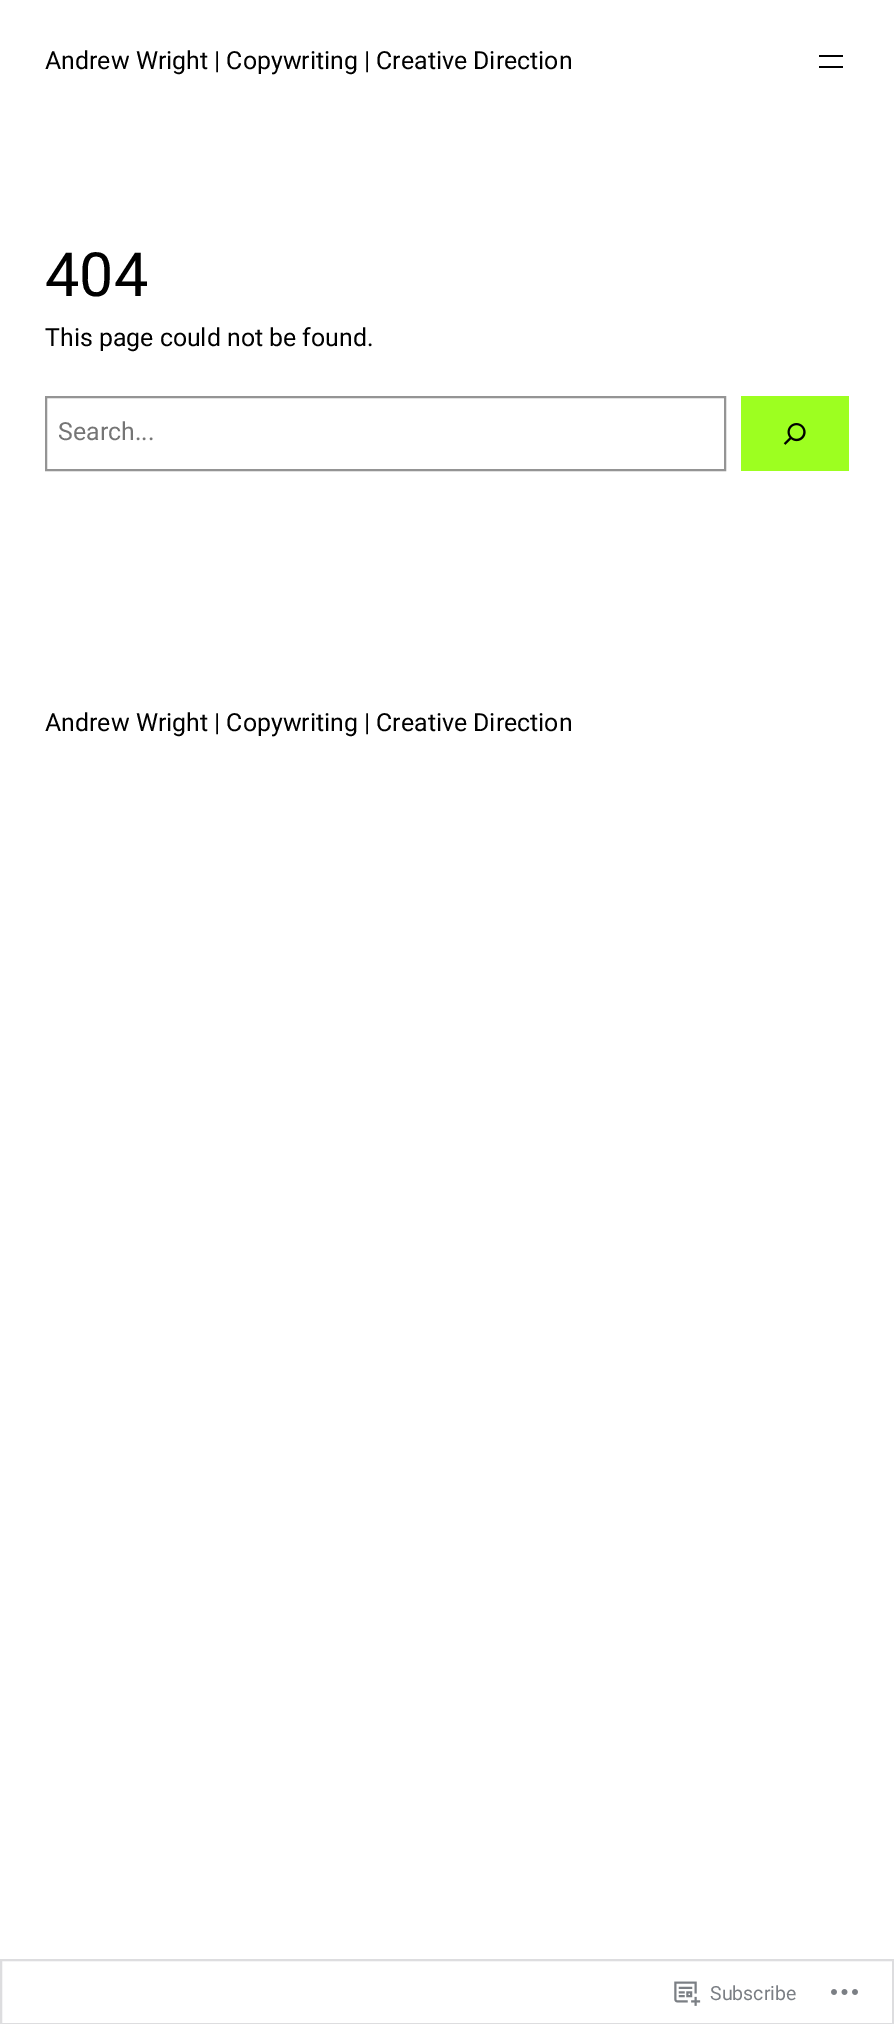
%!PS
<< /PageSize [894 2024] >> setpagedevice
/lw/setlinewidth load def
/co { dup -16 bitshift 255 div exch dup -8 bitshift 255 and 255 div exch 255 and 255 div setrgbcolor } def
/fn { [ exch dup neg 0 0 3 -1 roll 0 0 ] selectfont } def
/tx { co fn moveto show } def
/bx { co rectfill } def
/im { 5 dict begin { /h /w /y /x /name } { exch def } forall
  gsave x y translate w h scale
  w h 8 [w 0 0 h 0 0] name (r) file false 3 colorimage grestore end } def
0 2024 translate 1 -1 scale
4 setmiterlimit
0 0 894 2024 16#FFFFFF bx
819 55 24 2 16#000000 bx
819 66 24 2 16#000000 bx
16#949494 co
2 lw
46 397 679 73 rectstroke
741 396 108 75 16#9DFF20 bx
(media/1.raw) 783 423 23 22 im
16#DDDDDF co
1 1960 892 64 rectstroke
(media/2.raw) 674 1981 27 25 im
(media/3.raw) 831 1989 27 6 im
(Andrew Wright | Copywriting | Creative Direction) 45 69 /Roboto-Regular 24.9 16#000000 tx
(404) 45 296 /Roboto-Regular 61 16#000000 tx
(This page could not be found.) 45 346 /Roboto-Regular 24.9 16#000000 tx
(Search...) 58 440 /Roboto-Regular 24.9 16#757575 tx
(Andrew Wright | Copywriting | Creative Direction) 45 731 /Roboto-Regular 24.9 16#000000 tx
(Subscribe) 710 2000 /Roboto-Regular 19.5 16#7B7F85 tx
showpage
